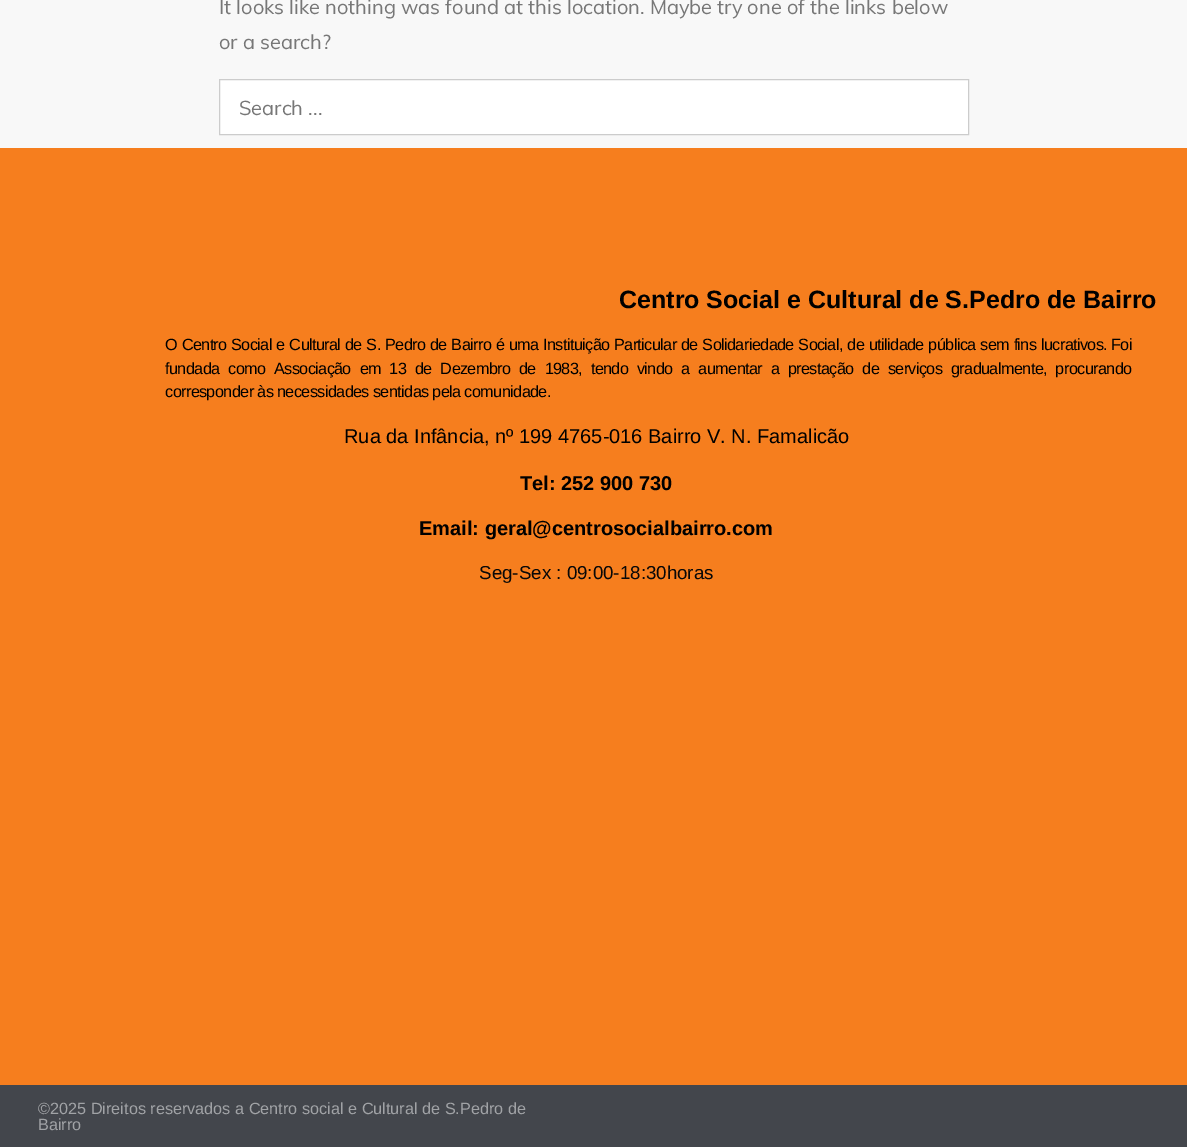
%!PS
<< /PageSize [1187 1147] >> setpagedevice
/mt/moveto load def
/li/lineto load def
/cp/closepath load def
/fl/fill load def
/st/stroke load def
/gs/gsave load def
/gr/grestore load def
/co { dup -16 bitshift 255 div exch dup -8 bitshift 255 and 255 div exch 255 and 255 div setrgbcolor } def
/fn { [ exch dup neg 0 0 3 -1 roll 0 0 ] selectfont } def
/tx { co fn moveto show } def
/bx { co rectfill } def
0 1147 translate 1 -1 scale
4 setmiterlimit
0 0 1187 1147 16#F8F8F8 bx
16#FFFFFF co
219.5 79.5 mt 968.5 79.5 li 968.5 134.5 li 219.5 134.5 li cp gs fl gr
16#CCCCCC co
st
0 148 1187 937 16#F67E1E bx
0 1085 1187 62 16#43464C bx
(It looks like nothing was found at this location. Maybe try one of the links below) 219 14 /Muli-Regular 20 16#777777 tx
(or a search?) 219 49 /Muli-Regular 20 16#777777 tx
(Search ...) 239 115 /Muli-Regular 20 16#777777 tx
(Centro Social e Cultural de S.Pedro de Bairro) 619 308 /LiberationSans-Bold 25 16#000000 tx
/LiberationSans-Regular 16.25 fn
165 350 mt .7 0 32 -.62 0 (O Centro Social e Cultural de S. Pedro de Bairro é uma Instituição Particular de Solidariedade Social, de utilidade pública sem fins lucrativos.) awidthshow
1111 350 mt -.62 0 (Foi) ashow
165 374 mt 4.75 0 32 -.62 0 (fundada como Associação em 13 de Dezembro de 1983, tendo vindo a aumentar a prestação de serviços gradualmente, procurando) awidthshow
165 397 mt -.62 0 (corresponder às necessidades sentidas pela comunidade.) ashow
(Rua da Infância, nº 199 4765-016 Bairro V. N. Famalicão) 344 443 /LiberationSans-Regular 20 16#000000 tx
(Tel: 252 900 730) 520 490 /LiberationSans-Bold 20 16#000000 tx
(Email: geral@centrosocialbairro.com) 419 535 /LiberationSans-Bold 20 16#000000 tx
(Seg-Sex : 09:00-18:30horas) 479 579 /LiberationSans-Regular 18.75 16#080808 tx
(©2025 Direitos reservados a Centro social e Cultural de S.Pedro de) 38 1114 /LiberationSans-Regular 16.25 16#A1A3A6 tx
(Bairro) 38 1130 /LiberationSans-Regular 16.25 16#A1A3A6 tx
showpage
